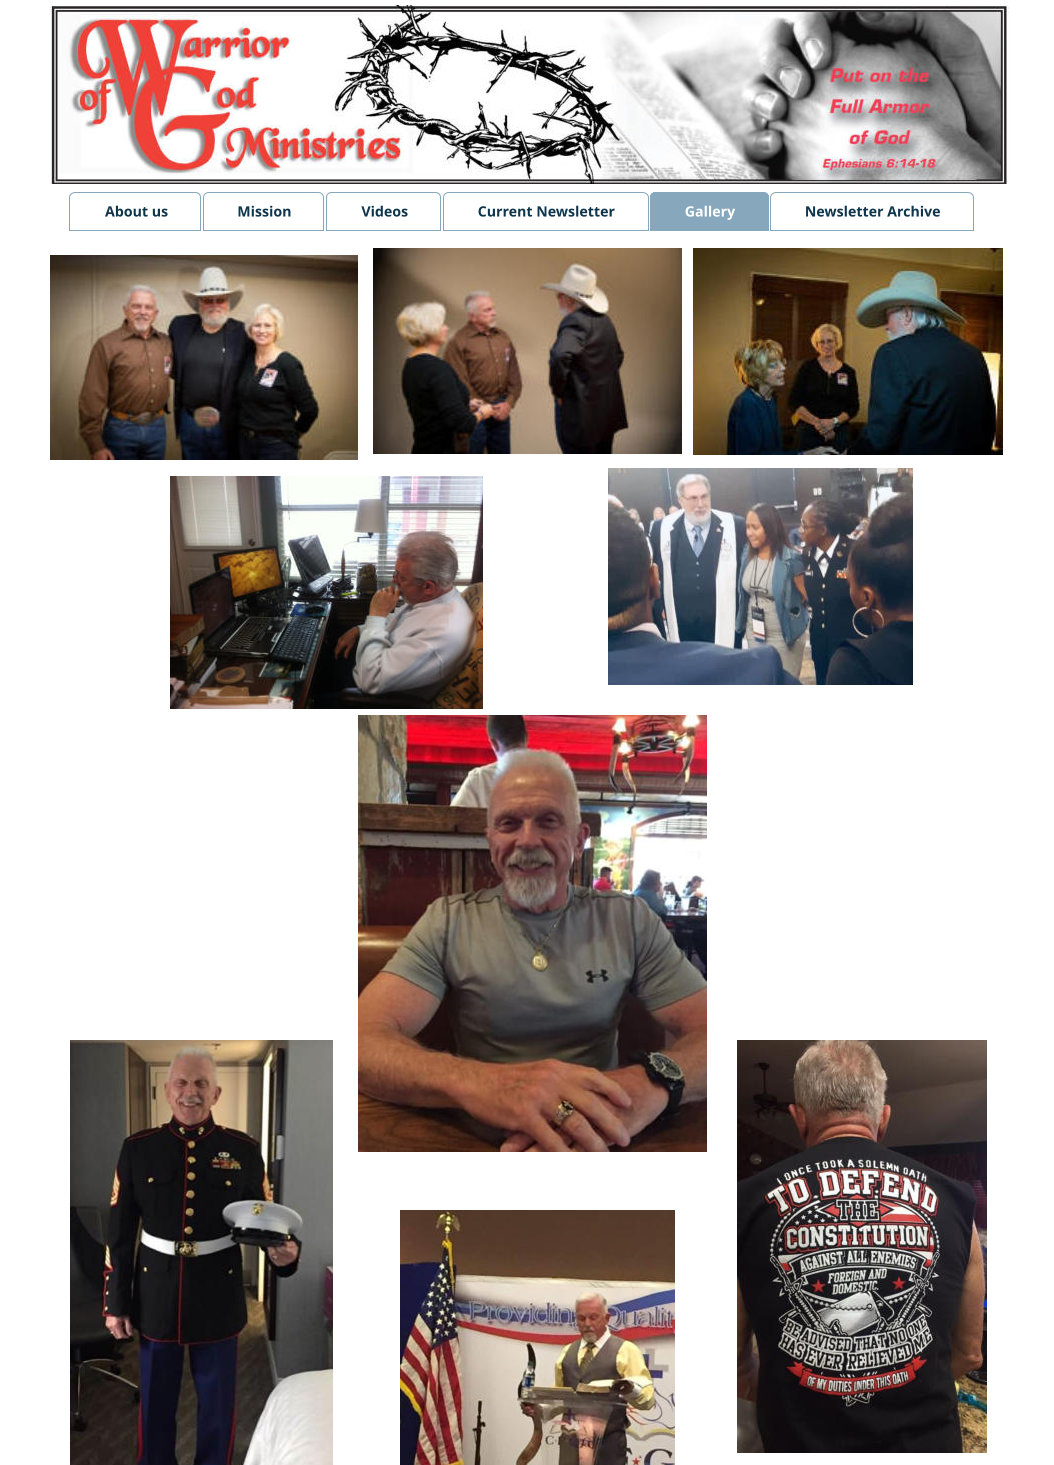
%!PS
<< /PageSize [1054 1465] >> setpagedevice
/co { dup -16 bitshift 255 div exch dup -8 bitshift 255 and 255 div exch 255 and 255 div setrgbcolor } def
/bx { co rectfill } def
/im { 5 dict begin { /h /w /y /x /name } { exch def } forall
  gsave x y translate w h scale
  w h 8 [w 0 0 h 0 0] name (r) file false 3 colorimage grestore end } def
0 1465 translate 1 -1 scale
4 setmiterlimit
0 0 1054 1465 16#FFFFFF bx
(media/1.raw) 50 5 959 179 im
(media/2.raw) 69 192 132 39 im
(media/3.raw) 203 192 121 39 im
(media/4.raw) 326 192 115 39 im
(media/5.raw) 443 192 206 39 im
(media/6.raw) 650 192 119 39 im
(media/7.raw) 650 192 119 38 im
(media/8.raw) 770 192 204 39 im
(media/9.raw) 50 255 308 205 im
(media/10.raw) 373 248 309 206 im
(media/11.raw) 693 248 310 207 im
(media/12.raw) 170 476 313 233 im
(media/13.raw) 608 468 305 217 im
(media/14.raw) 358 715 349 437 im
(media/15.raw) 70 1040 263 425 im
(media/16.raw) 400 1210 275 255 im
(media/17.raw) 737 1040 250 413 im
showpage
